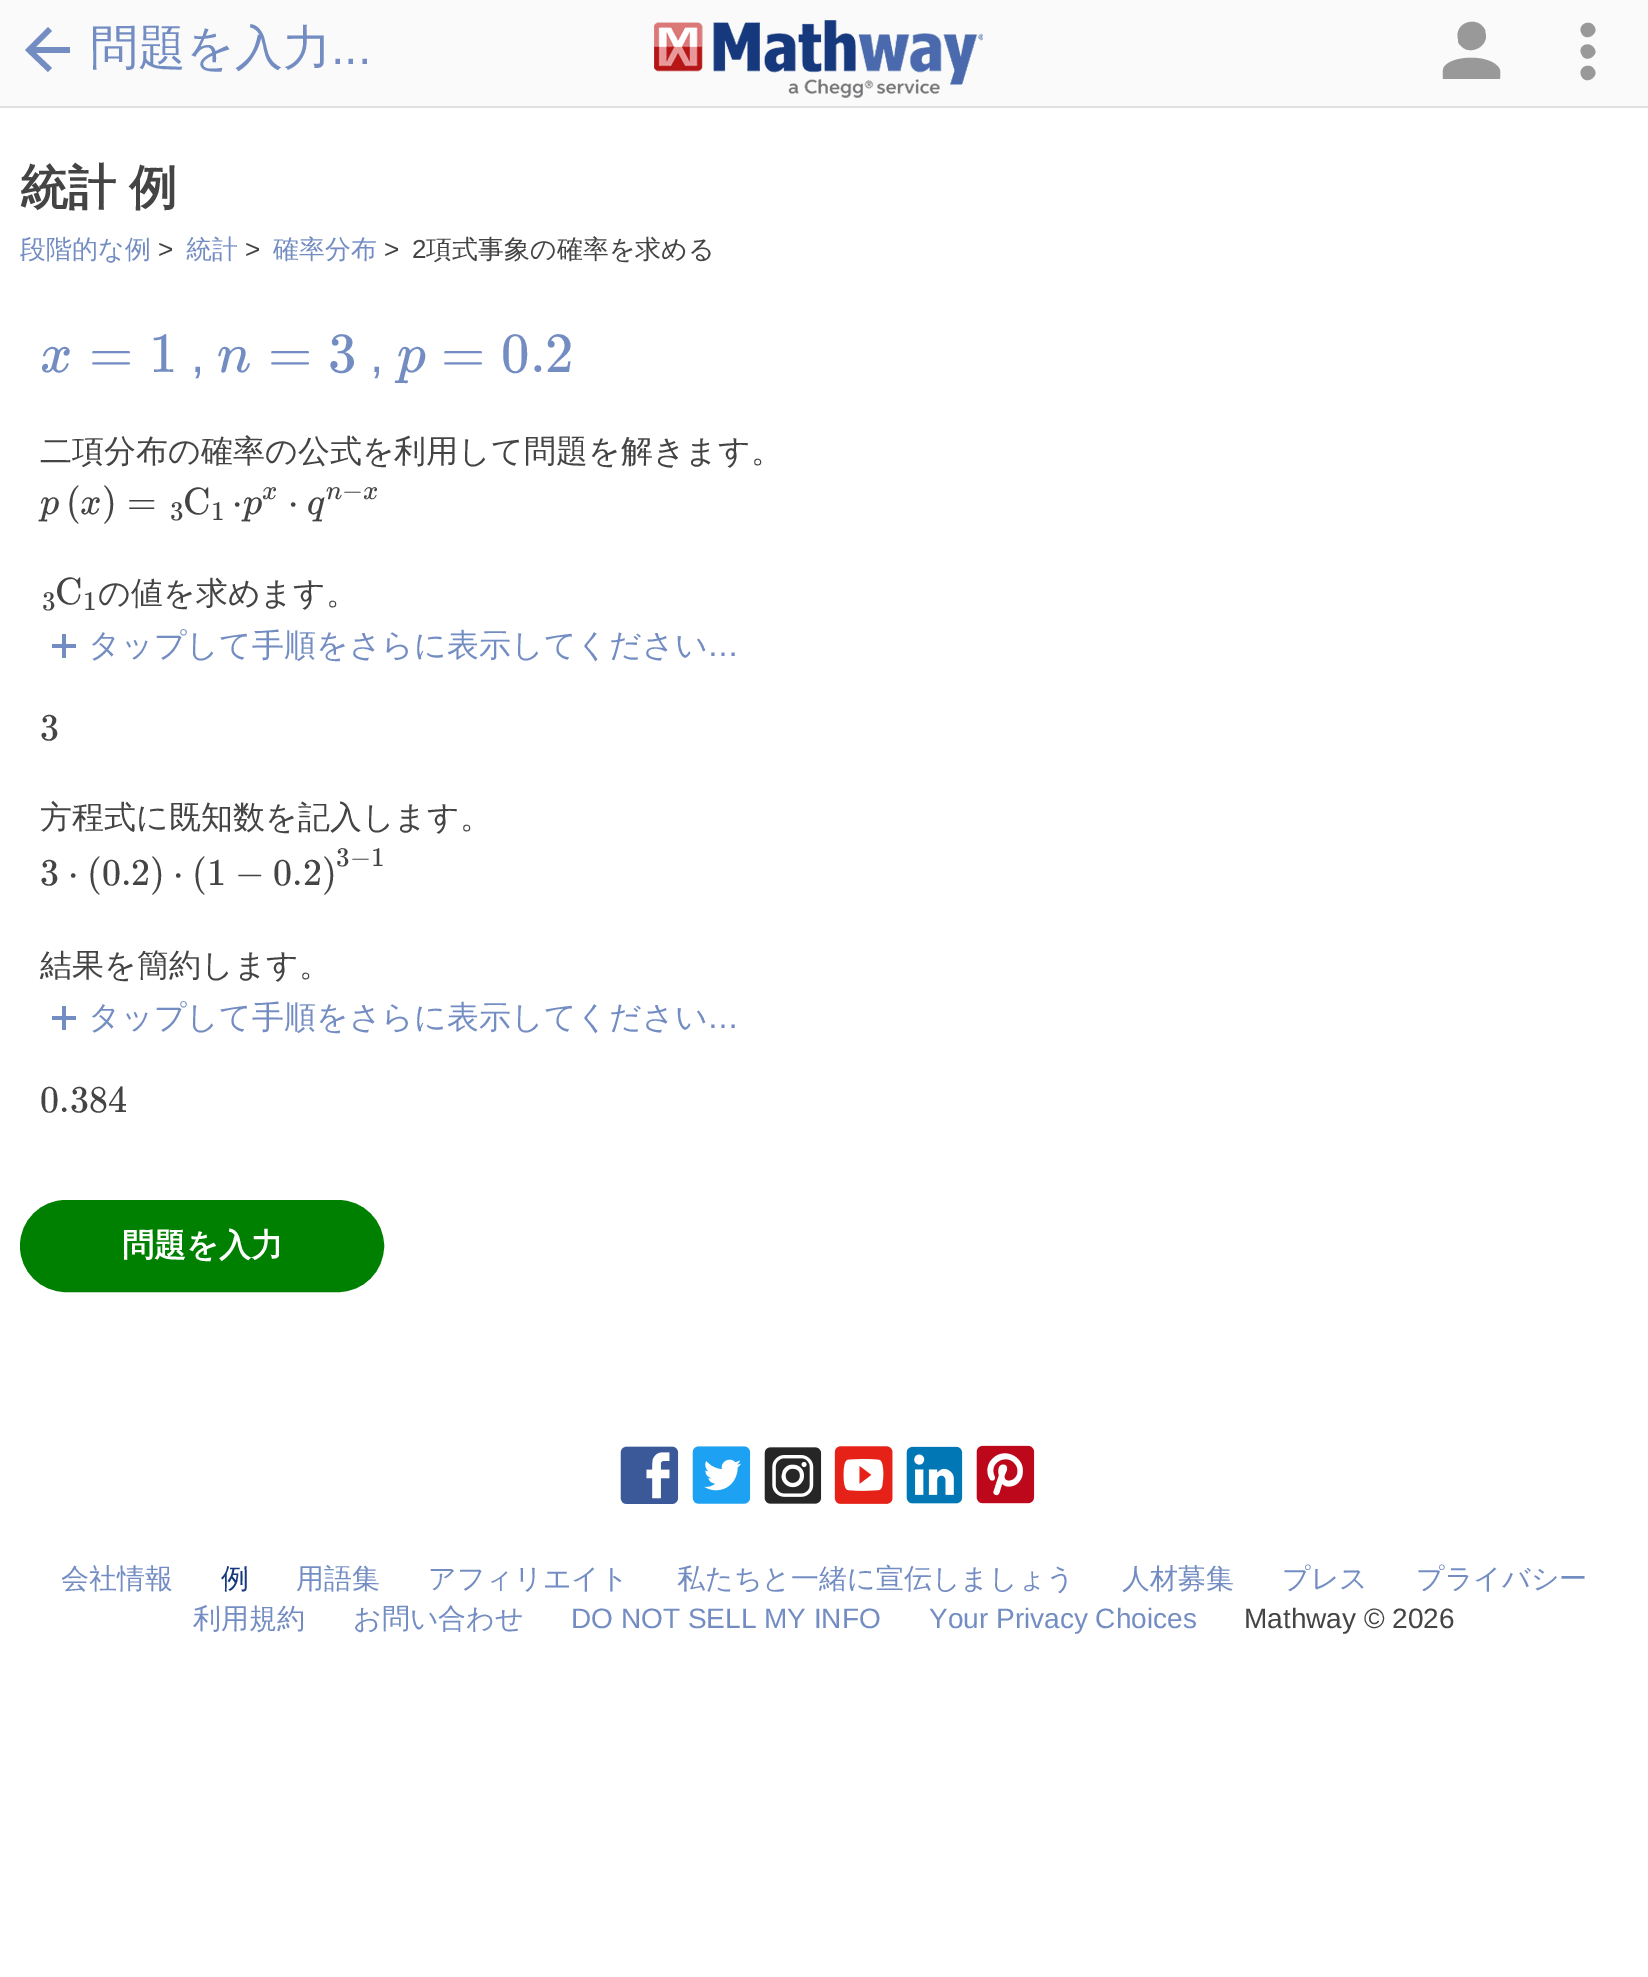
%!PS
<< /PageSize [1648 1977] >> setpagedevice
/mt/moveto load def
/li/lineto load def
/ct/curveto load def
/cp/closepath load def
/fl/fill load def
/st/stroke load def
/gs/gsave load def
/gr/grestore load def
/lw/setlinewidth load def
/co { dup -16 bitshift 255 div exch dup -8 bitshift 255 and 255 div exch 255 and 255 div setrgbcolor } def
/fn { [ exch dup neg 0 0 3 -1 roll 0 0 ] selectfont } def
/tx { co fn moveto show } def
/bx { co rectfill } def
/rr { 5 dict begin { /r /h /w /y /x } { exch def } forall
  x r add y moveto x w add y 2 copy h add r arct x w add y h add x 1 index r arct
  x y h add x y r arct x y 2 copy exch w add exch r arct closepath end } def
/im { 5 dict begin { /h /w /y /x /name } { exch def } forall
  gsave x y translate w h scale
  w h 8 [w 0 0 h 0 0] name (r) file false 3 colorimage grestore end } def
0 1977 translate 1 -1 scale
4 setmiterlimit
0 0 1648 1977 16#FFFFFF bx
0 106 1648 2 16#E1E1E1 bx
0 0 1648 106 16#FAFAFA bx
16#738DC3 co
48 27 mt 25 50 li 48 72 li 52 68 li 36 53 li 70 53 li 70 47 li 36 47 li 52 31 li cp fl
(media/1.raw) 654 20 329 78 im
16#999999 co
1486 36 mt 1485 30 li 1478 15 1454 22 1458 39 ct 1458 41 1458 42 1459 44 ct 1462 47 1465 50 1469 50 ct 1478 51 1486 44 1486 36 ct cp 1500 79 mt 1500 75 1501 71 1499 68 ct 1490 54 1452 55 1444 67 ct 1442 71 1443 75 1443 79 ct cp fl
1595 28 mt 1591 18 1578 24 1581 32 ct 1585 43 1598 34 1595 28 ct cp 1595 50 mt 1591 40 1578 45 1581 53 ct 1585 65 1598 55 1595 50 ct cp 1595 71 mt 1591 61 1578 67 1581 75 ct 1585 86 1598 77 1595 71 ct cp fl
62 634 4 24 16#738DC3 bx
52 644 24 4 16#738DC3 bx
62 1006 4 24 16#738DC3 bx
52 1016 24 4 16#738DC3 bx
16#008000 co
21 1201 362 90 45 rr gs fl gr
2 lw
st
(media/2.raw) 620 1446 59 58 im
(media/3.raw) 692 1446 59 58 im
(media/4.raw) 764 1447 58 57 im
(media/5.raw) 834 1446 59 58 im
(media/6.raw) 906 1446 57 58 im
(media/7.raw) 976 1445 59 59 im
(問題を入力) 90 64 /WenQuanYiZenHei-Medium 48 16#738DC3 tx
(...) 331 64 /LiberationSans-Regular 48 16#738DC3 tx
/WenQuanYiZenHei-Bold 48 fn
16#444444 co
20 204 mt -1 0 32 (統計 例) widthshow
(段階的な例) 20 258 /WenQuanYiZenHei-Medium 26 16#738DC3 tx
(>) 158 258 /LiberationSans-Regular 26 16#444444 tx
(統計) 186 258 /WenQuanYiZenHei-Medium 26 16#738DC3 tx
(>) 245 258 /LiberationSans-Regular 26 16#444444 tx
(確率分布) 273 258 /WenQuanYiZenHei-Medium 26 16#738DC3 tx
(>) 384 258 /LiberationSans-Regular 26 16#444444 tx
(2) 412 258 /LiberationSans-Regular 26 16#444444 tx
(項式事象の確率を求める) 426 258 /WenQuanYiZenHei-Medium 26 16#444444 tx
(x) 40 372 /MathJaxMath-Italic 57 16#738DC3 tx
(=) 89 372 /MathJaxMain-Regular 57 16#738DC3 tx
(1) 149 372 /MathJaxMain-Regular 57 16#738DC3 tx
(,) 191 372 /LiberationSans-Regular 48 16#738DC3 tx
(n) 217 372 /MathJaxMath-Italic 57 16#738DC3 tx
(=) 268 372 /MathJaxMain-Regular 57 16#738DC3 tx
(3) 328 372 /MathJaxMain-Regular 57 16#738DC3 tx
(,) 370 372 /LiberationSans-Regular 48 16#738DC3 tx
(p) 397 372 /MathJaxMath-Italic 57 16#738DC3 tx
(=) 441 372 /MathJaxMain-Regular 57 16#738DC3 tx
(0.2) 501 372 /MathJaxMain-Regular 57 16#738DC3 tx
(二項分布の確率の公式を利用して問題を解きます。) 40 462 /WenQuanYiZenHei-Medium 32 16#444444 tx
(p) 40 514 /MathJaxMath-Italic 38 16#444444 tx
(\() 66 514 /MathJaxMain-Regular 38 16#444444 tx
(x) 80 514 /MathJaxMath-Italic 38 16#444444 tx
(\)) 102 514 /MathJaxMain-Regular 38 16#444444 tx
(=) 127 514 /MathJaxMain-Regular 38 16#444444 tx
(3) 170 520 /MathJaxMain-Regular 27 16#444444 tx
(C) 183 514 /MathJaxMain-Regular 38 16#444444 tx
(1) 211 520 /MathJaxMain-Regular 27 16#444444 tx
(⋅) 232 514 /MathJaxMain-Regular 38 16#444444 tx
(x) 262 499 /MathJaxMath-Italic 27 16#444444 tx
(p) 243 514 /MathJaxMath-Italic 38 16#444444 tx
(⋅) 288 514 /MathJaxMain-Regular 38 16#444444 tx
(n) 326 499 /MathJaxMath-Italic 27 16#444444 tx
(−) 342 499 /MathJaxMain-Regular 27 16#444444 tx
(x) 363 499 /MathJaxMath-Italic 27 16#444444 tx
(q) 307 514 /MathJaxMath-Italic 38 16#444444 tx
(3) 42 610 /MathJaxMain-Regular 27 16#444444 tx
(C) 55 604 /MathJaxMain-Regular 38 16#444444 tx
(1) 83 610 /MathJaxMain-Regular 27 16#444444 tx
(の値を求めます。) 98 604 /WenQuanYiZenHei-Medium 32 16#444444 tx
(タップして手順をさらに表示してください) 88 656 /WenQuanYiZenHei-Medium 32 16#738DC3 tx
(…) 707 656 /LiberationSans-Regular 32 16#738DC3 tx
(3) 40 740 /MathJaxMain-Regular 38 16#444444 tx
(方程式に既知数を記入します。) 40 828 /WenQuanYiZenHei-Medium 32 16#444444 tx
(3) 40 885 /MathJaxMain-Regular 38 16#444444 tx
(⋅) 68 885 /MathJaxMain-Regular 38 16#444444 tx
(\(0.2\)) 87 885 /MathJaxMain-Regular 38 16#444444 tx
(⋅) 173 885 /MathJaxMain-Regular 38 16#444444 tx
(\(1) 192 885 /MathJaxMain-Regular 38 16#444444 tx
(−) 235 885 /MathJaxMain-Regular 38 16#444444 tx
(0.2\)) 273 885 /MathJaxMain-Regular 38 16#444444 tx
(3−1) 336 866 /MathJaxMain-Regular 27 16#444444 tx
(結果を簡約します。) 40 976 /WenQuanYiZenHei-Medium 32 16#444444 tx
(タップして手順をさらに表示してください) 88 1028 /WenQuanYiZenHei-Medium 32 16#738DC3 tx
(…) 707 1028 /LiberationSans-Regular 32 16#738DC3 tx
(0.384) 40 1112 /MathJaxMain-Regular 38 16#444444 tx
(問題を入力) 122 1256 /WenQuanYiZenHei-Bold 32 16#FFFFFF tx
(会社情報) 61 1588 /WenQuanYiZenHei-Medium 28 16#738DC3 tx
(例) 221 1588 /WenQuanYiZenHei-Medium 28 16#16387C tx
(用語集) 296 1588 /WenQuanYiZenHei-Medium 28 16#738DC3 tx
(アフィリエイト) 428 1588 /WenQuanYiZenHei-Medium 28 16#738DC3 tx
(私たちと一緒に宣伝しましょう) 677 1588 /WenQuanYiZenHei-Medium 28 16#738DC3 tx
(人材募集) 1122 1588 /WenQuanYiZenHei-Medium 28 16#738DC3 tx
(プレス) 1282 1588 /WenQuanYiZenHei-Medium 28 16#738DC3 tx
(プライバシー) 1416 1588 /WenQuanYiZenHei-Medium 28 16#738DC3 tx
(利用規約) 193 1628 /WenQuanYiZenHei-Medium 28 16#738DC3 tx
(お問い合わせ) 353 1628 /WenQuanYiZenHei-Medium 28 16#738DC3 tx
(DO NOT SELL MY INFO) 571 1628 /LiberationSans-Regular 28 16#738DC3 tx
(Your Privacy Choices) 929 1628 /LiberationSans-Regular 28 16#738DC3 tx
(Mathway © 2026) 1244 1628 /LiberationSans-Regular 28 16#444444 tx
showpage
